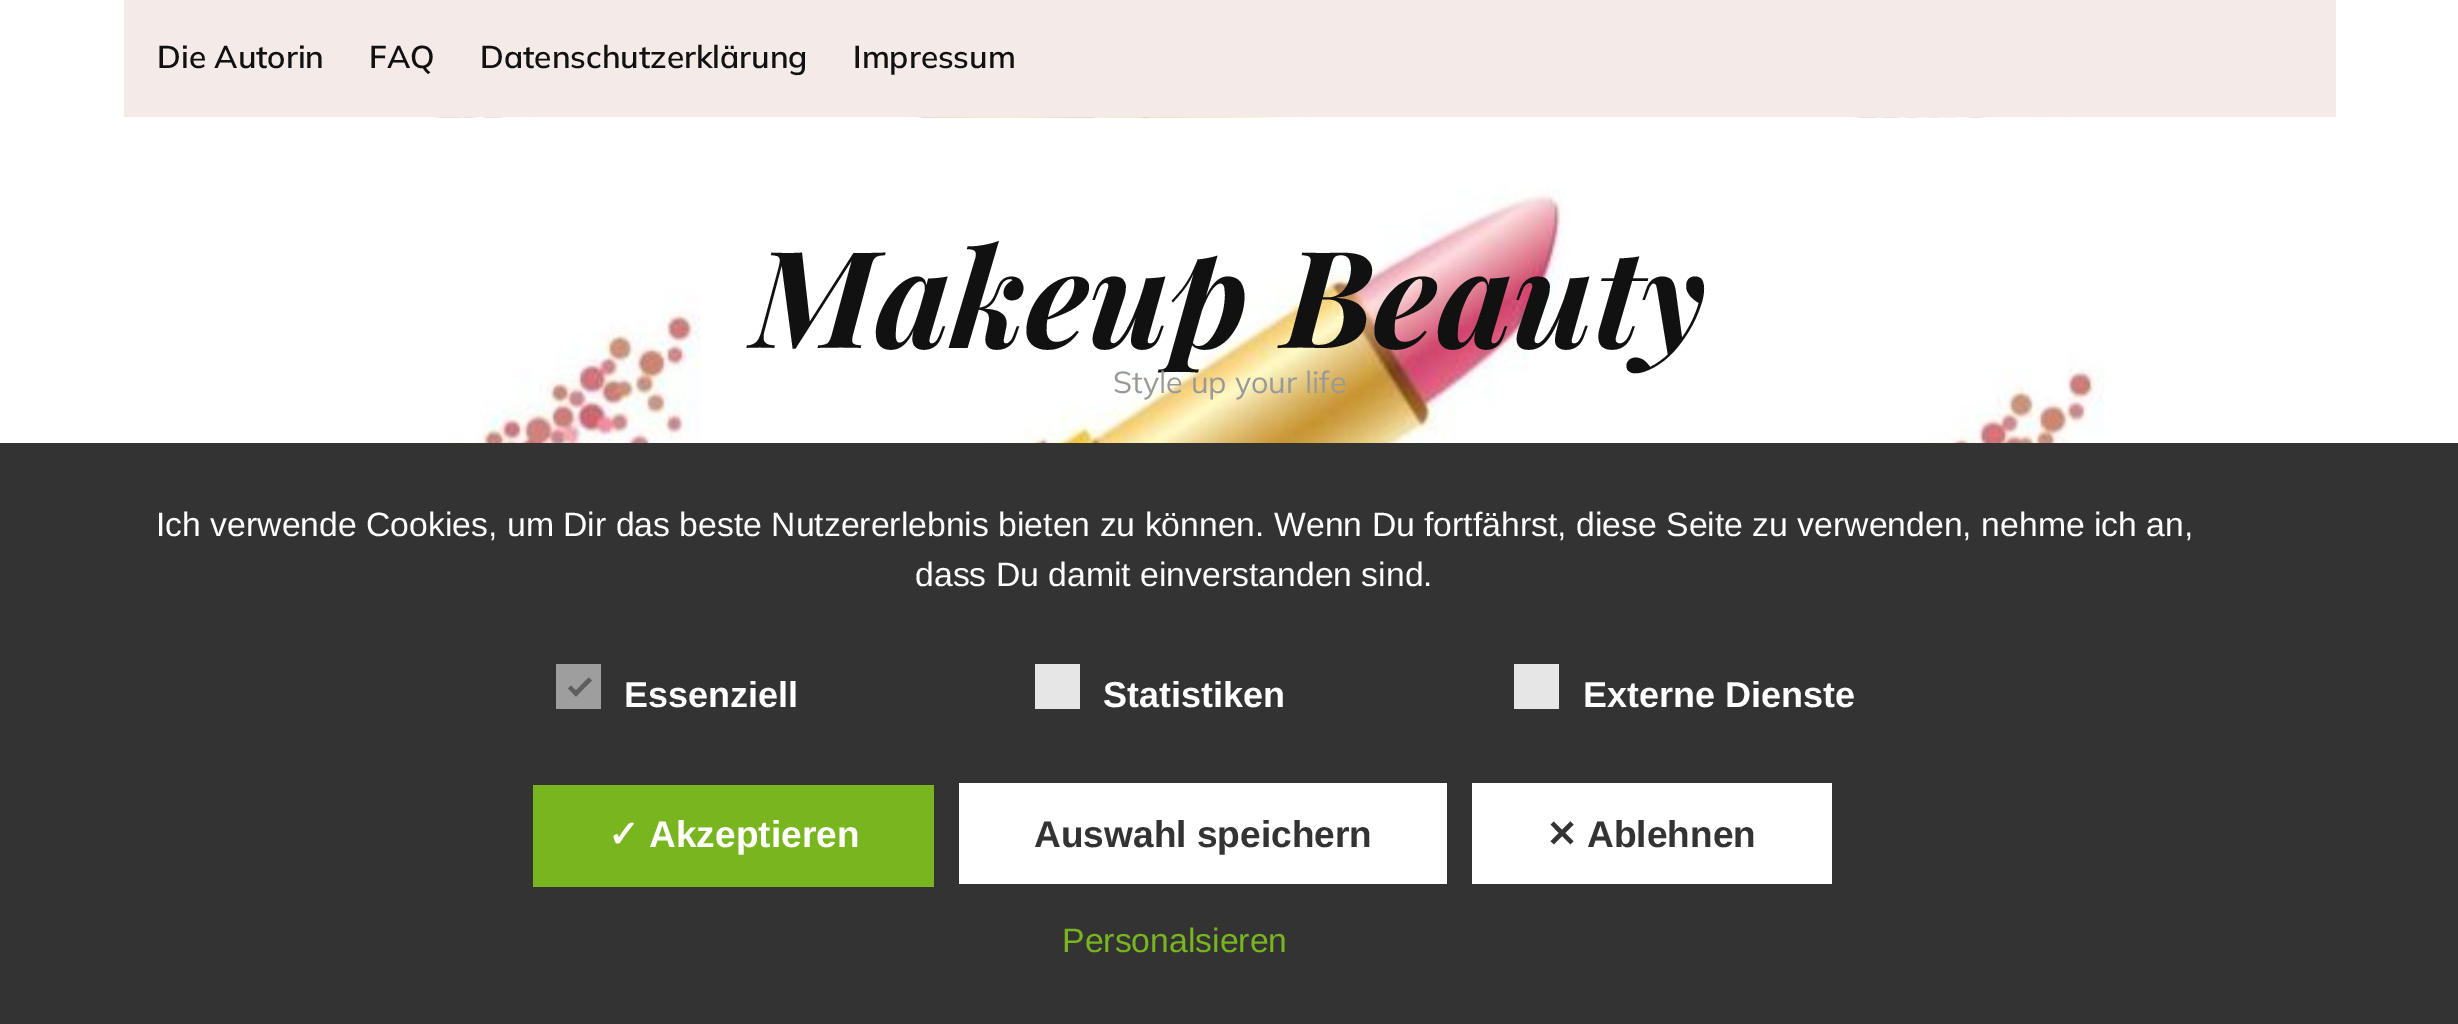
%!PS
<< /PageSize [2458 1024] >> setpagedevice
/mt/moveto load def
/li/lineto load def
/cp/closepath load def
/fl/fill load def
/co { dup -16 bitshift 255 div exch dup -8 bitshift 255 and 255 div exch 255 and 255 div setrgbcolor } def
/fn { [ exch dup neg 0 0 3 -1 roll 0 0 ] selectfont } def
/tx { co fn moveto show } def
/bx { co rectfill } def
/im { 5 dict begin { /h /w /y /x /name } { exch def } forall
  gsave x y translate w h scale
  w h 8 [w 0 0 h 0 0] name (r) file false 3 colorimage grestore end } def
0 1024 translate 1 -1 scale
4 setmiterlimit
0 0 2458 1024 16#FFFFFF bx
(media/1.raw) 2336 0 122 443 im
124 0 2212 117 16#F4EBE9 bx
(media/2.raw) 429 117 1675 326 im
0 443 2458 581 16#333333 bx
556 664 45 45 16#9E9E9E bx
16#5E5E5E co
588.5 677.5 mt 592 680.5 li 576 696.5 li 573 693.5 li cp fl
571 685.5 mt 579 693.5 li 576 696.5 li 568 688.5 li cp fl
1035 664 45 45 16#E6E6E6 bx
1514 664 45 45 16#E6E6E6 bx
533 785 401 102 16#79B51F bx
959 783 488 101 16#FFFFFF bx
1472 783 360 101 16#FFFFFF bx
(Die Autorin) 157 68 /Mulish-SemiBold 31.5 16#111111 tx
(FAQ) 369 68 /Mulish-SemiBold 31.5 16#111111 tx
(Datenschutzerklärung) 480 68 /Mulish-SemiBold 31.5 16#111111 tx
(Impressum) 853 68 /Mulish-SemiBold 31.5 16#111111 tx
(Makeup Beauty) 752 348 /PlayfairDisplay-BoldItalic 135 16#111111 tx
(Style up your life) 1113 393 /Mulish-Regular 30.5 16#999999 tx
(Ich verwende Cookies, um Dir das beste Nutzererlebnis bieten zu können. Wenn Du fortfährst, diese Seite zu verwenden, nehme ich an,) 156 536 /LiberationSans-Regular 33.75 16#FFFFFF tx
(dass Du damit einverstanden sind.) 915 586 /LiberationSans-Regular 33.75 16#FFFFFF tx
(Essenziell) 624 707 /LiberationSans-Bold 36 16#FFFFFF tx
(Statistiken) 1103 707 /LiberationSans-Bold 36 16#FFFFFF tx
(Externe Dienste) 1583 707 /LiberationSans-Bold 36 16#FFFFFF tx
(✓) 608 847 /DejaVuSans-Bold 37.1 16#FFFFFF tx
(Akzeptieren) 649 847 /LiberationSans-Bold 37.1 16#FFFFFF tx
(Auswahl speichern) 1034 847 /LiberationSans-Bold 37.1 16#333333 tx
(✕) 1546 847 /DejaVuSans-Bold 37.1 16#333333 tx
(Ablehnen) 1587 847 /LiberationSans-Bold 37.1 16#333333 tx
(Personalsieren) 1062 952 /LiberationSans-Regular 33.75 16#79B51F tx
showpage
